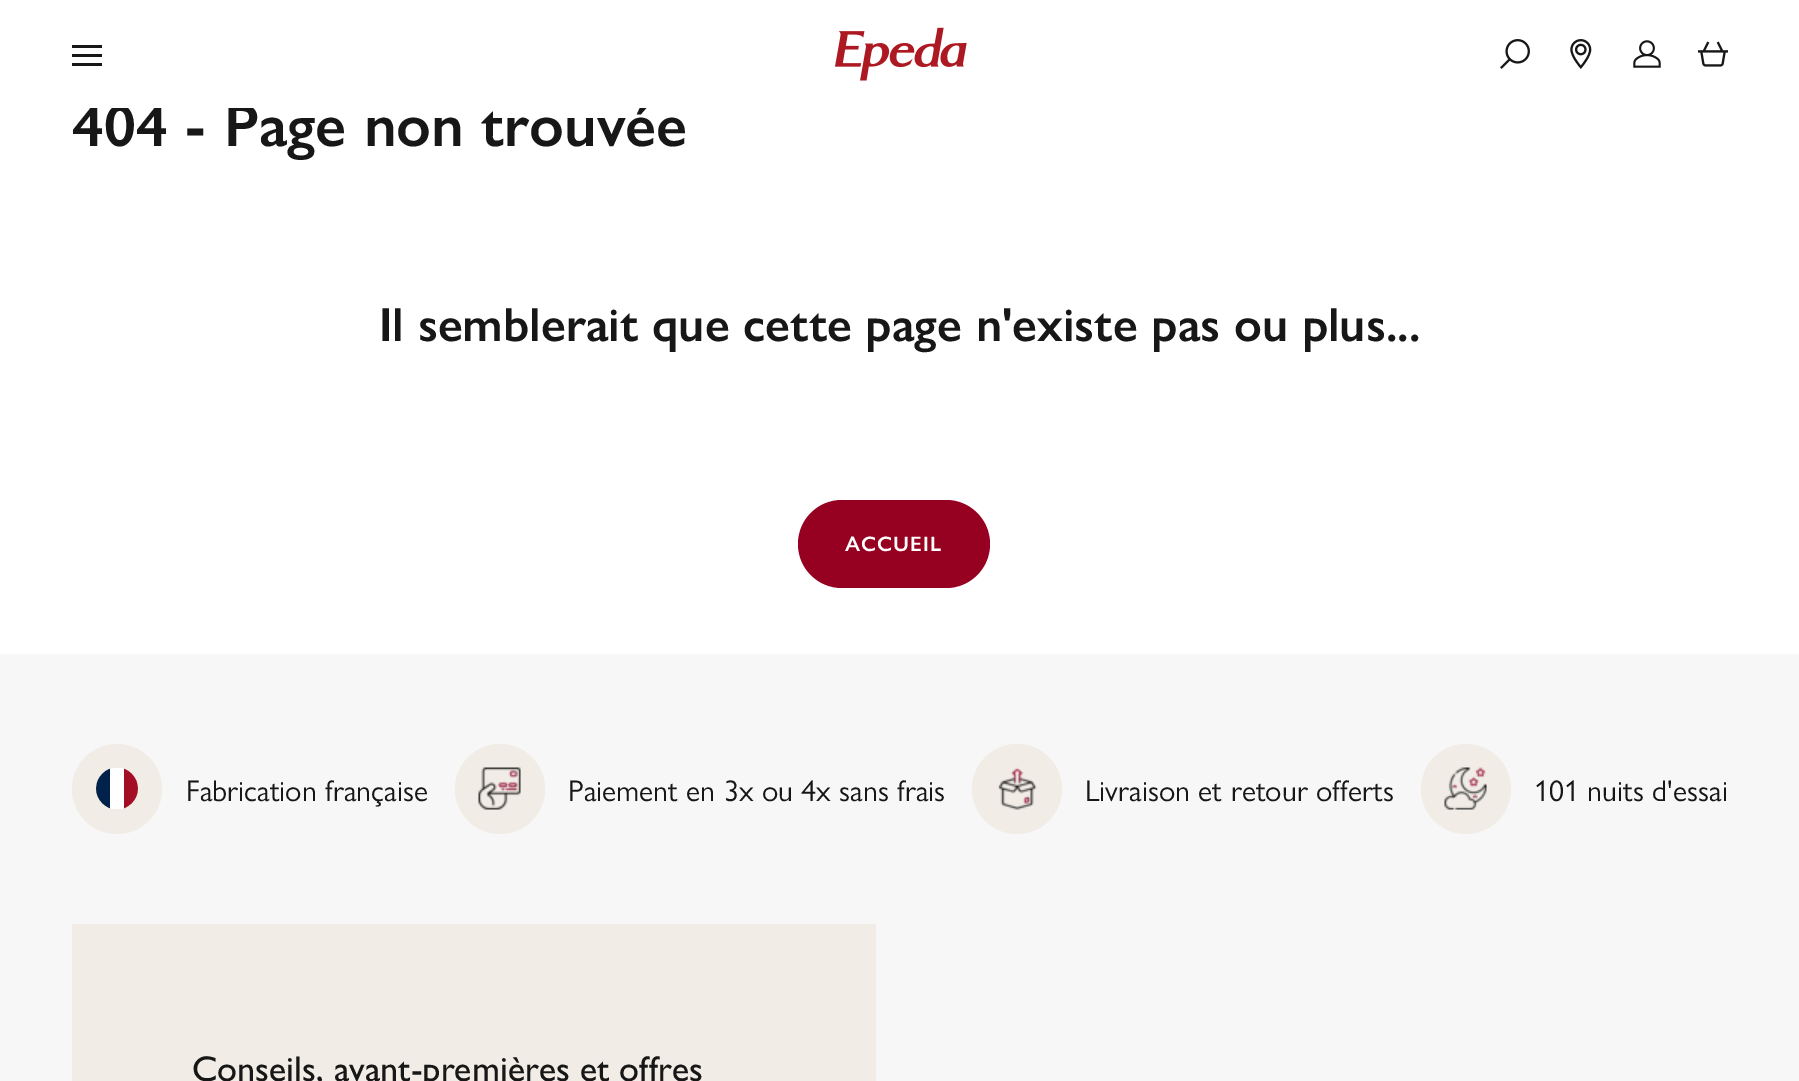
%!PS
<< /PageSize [1799 1081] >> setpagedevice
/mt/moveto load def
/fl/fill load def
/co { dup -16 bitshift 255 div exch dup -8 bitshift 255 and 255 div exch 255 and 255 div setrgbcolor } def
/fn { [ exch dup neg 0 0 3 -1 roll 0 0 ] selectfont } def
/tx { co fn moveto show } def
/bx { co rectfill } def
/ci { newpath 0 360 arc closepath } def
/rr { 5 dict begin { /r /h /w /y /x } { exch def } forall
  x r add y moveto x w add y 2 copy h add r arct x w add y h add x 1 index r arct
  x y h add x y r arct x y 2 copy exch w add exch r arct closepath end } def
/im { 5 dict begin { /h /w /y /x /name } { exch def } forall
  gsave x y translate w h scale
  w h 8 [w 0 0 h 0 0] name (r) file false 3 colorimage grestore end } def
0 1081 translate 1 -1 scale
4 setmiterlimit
0 0 1799 1081 16#FFFFFF bx
72 45 30 3 16#171717 bx
72 54 30 3 16#171717 bx
72 63 30 3 16#171717 bx
(media/1.raw) 835 27 132 54 im
(media/2.raw) 1500 39 30 30 im
(media/3.raw) 1570 39 22 30 im
(media/4.raw) 1633 40 28 28 im
(media/5.raw) 1698 41 30 26 im
16#960021 co
798 500 192 88 44 rr fl
0 654 1799 427 16#F8F7F7 bx
16#F1EDE6 co
117 789 45 ci fl
(media/6.raw) 96 768 42 41 im
500 789 45 ci fl
(media/7.raw) 478 767 43 43 im
1017 789 45 ci fl
(media/8.raw) 998 767 39 43 im
1466 789 45 ci fl
(media/9.raw) 1444 767 43 43 im
72 924 804 157 16#F1EDE6 bx
(404 - Page non trouvée) 72 146 /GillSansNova-SemiBold 60 16#171717 tx
90 104 560 4 16#FFFFFF bx
(Il semblerait que cette page n'existe pas ou plus...) 379 341 /GillSansNova-SemiBold 48 16#171717 tx
/GillSansNova-SemiBold 21 fn
16#FFFFFF co
845 551 mt 1 0 (ACCUEIL) ashow
(Fabrication française) 186 801 /GillSansNova-Regular 30 16#171717 tx
(Paiement en 3x ou 4x sans frais) 568 801 /GillSansNova-Regular 30 16#171717 tx
(Livraison et retour offerts) 1085 801 /GillSansNova-Regular 30 16#171717 tx
(101 nuits d'essai) 1534 801 /GillSansNova-Regular 30 16#171717 tx
(Conseils, avant-premières et offres) 192 1081 /GillSansNova-Medium 36 16#171717 tx
showpage
